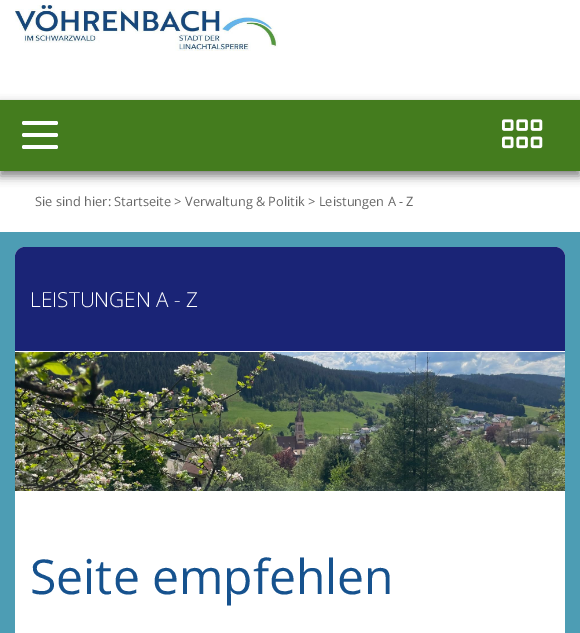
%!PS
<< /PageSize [580 633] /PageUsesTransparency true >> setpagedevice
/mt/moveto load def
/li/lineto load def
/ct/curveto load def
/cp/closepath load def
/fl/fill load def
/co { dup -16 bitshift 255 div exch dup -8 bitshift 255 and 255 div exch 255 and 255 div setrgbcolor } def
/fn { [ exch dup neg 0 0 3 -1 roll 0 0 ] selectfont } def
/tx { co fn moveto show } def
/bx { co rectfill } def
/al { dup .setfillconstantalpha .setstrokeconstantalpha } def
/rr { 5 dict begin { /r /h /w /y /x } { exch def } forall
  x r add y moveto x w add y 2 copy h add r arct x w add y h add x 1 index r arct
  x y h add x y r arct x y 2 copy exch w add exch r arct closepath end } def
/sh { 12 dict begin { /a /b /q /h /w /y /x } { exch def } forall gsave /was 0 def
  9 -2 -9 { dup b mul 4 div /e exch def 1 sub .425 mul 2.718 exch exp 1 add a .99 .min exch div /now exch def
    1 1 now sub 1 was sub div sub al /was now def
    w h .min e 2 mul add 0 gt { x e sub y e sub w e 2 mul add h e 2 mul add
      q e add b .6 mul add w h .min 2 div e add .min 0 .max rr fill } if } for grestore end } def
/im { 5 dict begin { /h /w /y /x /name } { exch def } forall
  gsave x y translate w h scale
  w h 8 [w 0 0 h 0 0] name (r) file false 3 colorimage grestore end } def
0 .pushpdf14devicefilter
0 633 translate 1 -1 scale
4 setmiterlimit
0 0 580 633 16#4D9DB4 bx
0 0 580 100 16#FFFFFF bx
(media/1.raw) 15 5 263 46 im
0 171 580 61 16#FFFFFF bx
16#000000 co
0 105 580 71 0 5 .5 sh
0 100 580 71 16#447C1E bx
16#FFFFFF co
22 121 36 4 2 rr fl
22 133 36 4 2 rr fl
22 145 36 4 2 rr fl
(media/2.raw) 502 119 41 30 im
15 247 550 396 10 rr fl
16#1A2476 co
25 247 mt 555 247 li 560.5 247 565 251.5 565 257 ct 565 352 li 15 352 li 15 257 li 15 251.5 19.5 247 25 247 ct cp fl
15 351 550 1 16#FFFFFF bx
(media/3.raw) 15 352 550 139 im
(Sie sind hier: Startseite > Verwaltung & Politik > Leistungen A - Z) 35 206 /OpenSans-Regular 12.8 16#666666 tx
(LEISTUNGEN A - Z) 30 307 /OpenSans-Light 20.75 16#FFFFFF tx
(Seite empfehlen) 30 594 /OpenSans-Regular 48 16#16528E tx
.poppdf14devicefilter showpage
